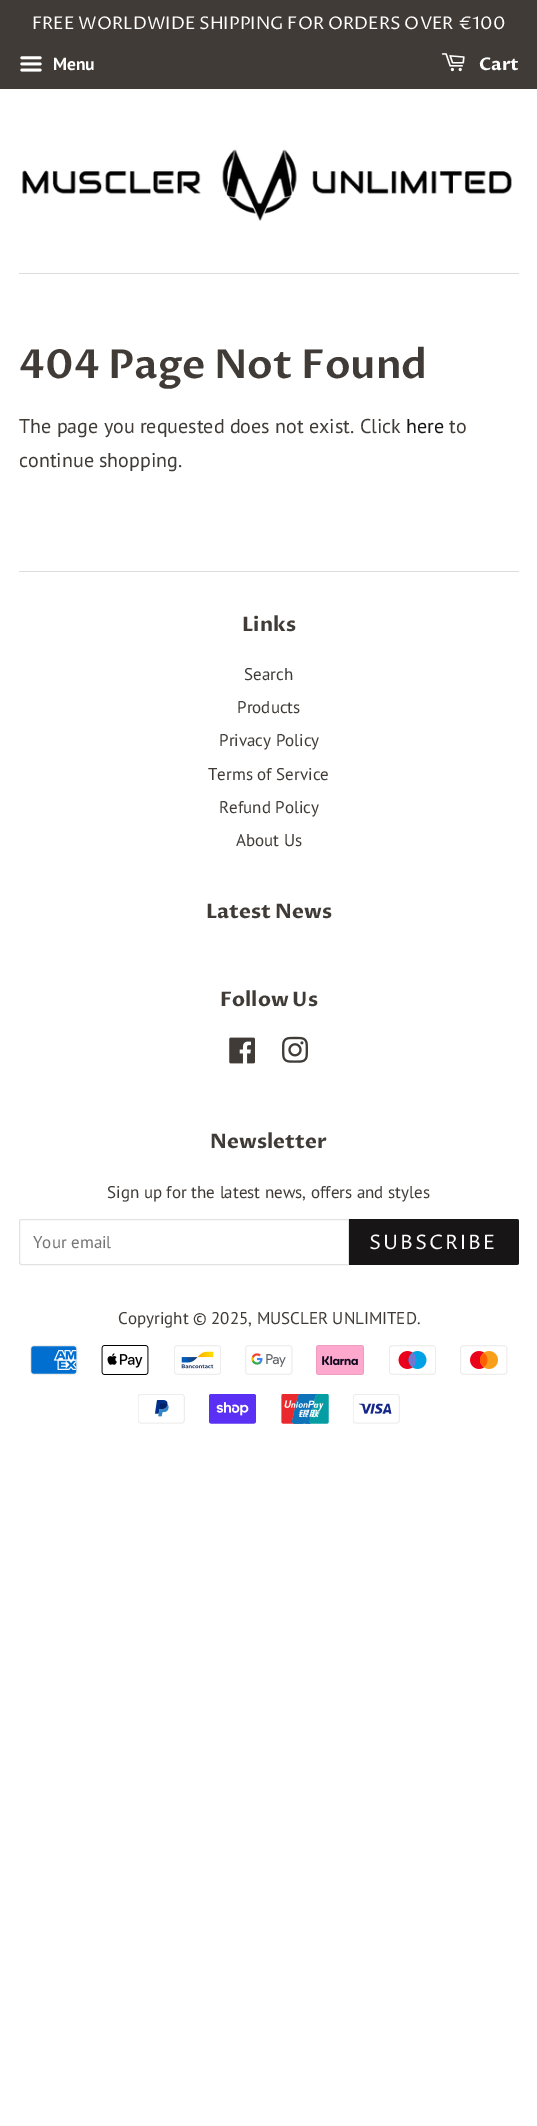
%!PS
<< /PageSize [537 2126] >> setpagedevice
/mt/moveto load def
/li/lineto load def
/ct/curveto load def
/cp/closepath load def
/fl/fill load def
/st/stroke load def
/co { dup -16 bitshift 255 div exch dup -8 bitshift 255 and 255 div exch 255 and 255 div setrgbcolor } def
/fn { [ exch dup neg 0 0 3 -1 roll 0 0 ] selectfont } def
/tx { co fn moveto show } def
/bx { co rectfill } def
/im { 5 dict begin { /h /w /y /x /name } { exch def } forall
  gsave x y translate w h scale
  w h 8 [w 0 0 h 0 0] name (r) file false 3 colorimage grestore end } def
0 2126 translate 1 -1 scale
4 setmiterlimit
0 0 537 2126 16#FFFFFF bx
0 0 537 89 16#403B37 bx
(media/1.raw) 20 56 22 16 im
(media/2.raw) 441 53 24 19 im
19 273 500 1 16#DDDDDD bx
(media/3.raw) 22 149 490 72 im
19 571 500 1 16#DDDDDD bx
(media/4.raw) 229 1037 26 27 im
(media/5.raw) 282 1036 26 27 im
16#E2E2E1 co
21.5 1219.5 mt 348.5 1219.5 li 348.5 1264.5 li 21.5 1264.5 li 20.5 1264.5 19.5 1263.5 19.5 1262.5 ct 19.5 1221.5 li 19.5 1220.5 20.5 1219.5 21.5 1219.5 ct cp st
16#171515 co
349 1219 mt 516.5 1219 li 518 1219 519 1220 519 1221.5 ct 519 1262.5 li 519 1264 518 1265 516.5 1265 ct 349 1265 li cp fl
(media/6.raw) 30 1345 48 30 im
(media/7.raw) 101 1345 48 30 im
(media/8.raw) 174 1345 47 30 im
(media/9.raw) 245 1345 48 30 im
(media/10.raw) 316 1345 48 30 im
(media/11.raw) 389 1345 47 30 im
(media/12.raw) 460 1345 48 30 im
(media/13.raw) 138 1394 47 30 im
(media/14.raw) 209 1394 47 30 im
(media/15.raw) 281 1394 48 30 im
(media/16.raw) 353 1394 47 30 im
(FREE WORLDWIDE SHIPPING FOR ORDERS OVER €100) 32 29 /ProzaLibre-Regular 17.5 16#FFFFFF tx
(Menu) 53 70 /PTSans-Bold 17.5 16#FFFFFF tx
(Cart) 479 70 /ProzaLibre-Bold 17.5 16#FFFFFF tx
(404 Page Not Found) 19 378 /ProzaLibre-SemiBold 40 16#403B37 tx
(The page you requested does not exist. Click) 19 433 /PTSans-Regular 20 16#403B37 tx
(here) 406 433 /PTSans-Regular 20 16#171515 tx
(to) 449 433 /PTSans-Regular 20 16#403B37 tx
(continue shopping.) 19 467 /PTSans-Regular 20 16#403B37 tx
(Links) 242 631 /ProzaLibre-Bold 20 16#403B37 tx
(Search) 244 680 /PTSans-Regular 17 16#403B37 tx
(Products) 237 713 /PTSans-Regular 17 16#403B37 tx
(Privacy Policy) 219 746 /PTSans-Regular 17 16#403B37 tx
(Terms of Service) 208 780 /PTSans-Regular 17 16#403B37 tx
(Refund Policy) 219 813 /PTSans-Regular 17 16#403B37 tx
(About Us) 236 846 /PTSans-Regular 17 16#403B37 tx
(Latest News) 206 918 /ProzaLibre-Bold 20 16#403B37 tx
(Follow Us) 220 1006 /ProzaLibre-Bold 20 16#403B37 tx
(Newsletter) 210 1148 /ProzaLibre-Bold 20 16#403B37 tx
(Sign up for the latest news, offers and styles) 107 1198 /PTSans-Regular 17 16#403B37 tx
(Your email) 33 1248 /PTSans-Regular 17 16#757575 tx
/ProzaLibre-Regular 20 fn
16#FFFFFF co
369 1249 mt 2 0 (SUBSCRIBE) ashow
(Copyright © 2025, MUSCLER UNLIMITED.) 118 1324 /PTSans-Regular 17 16#403B37 tx
showpage
